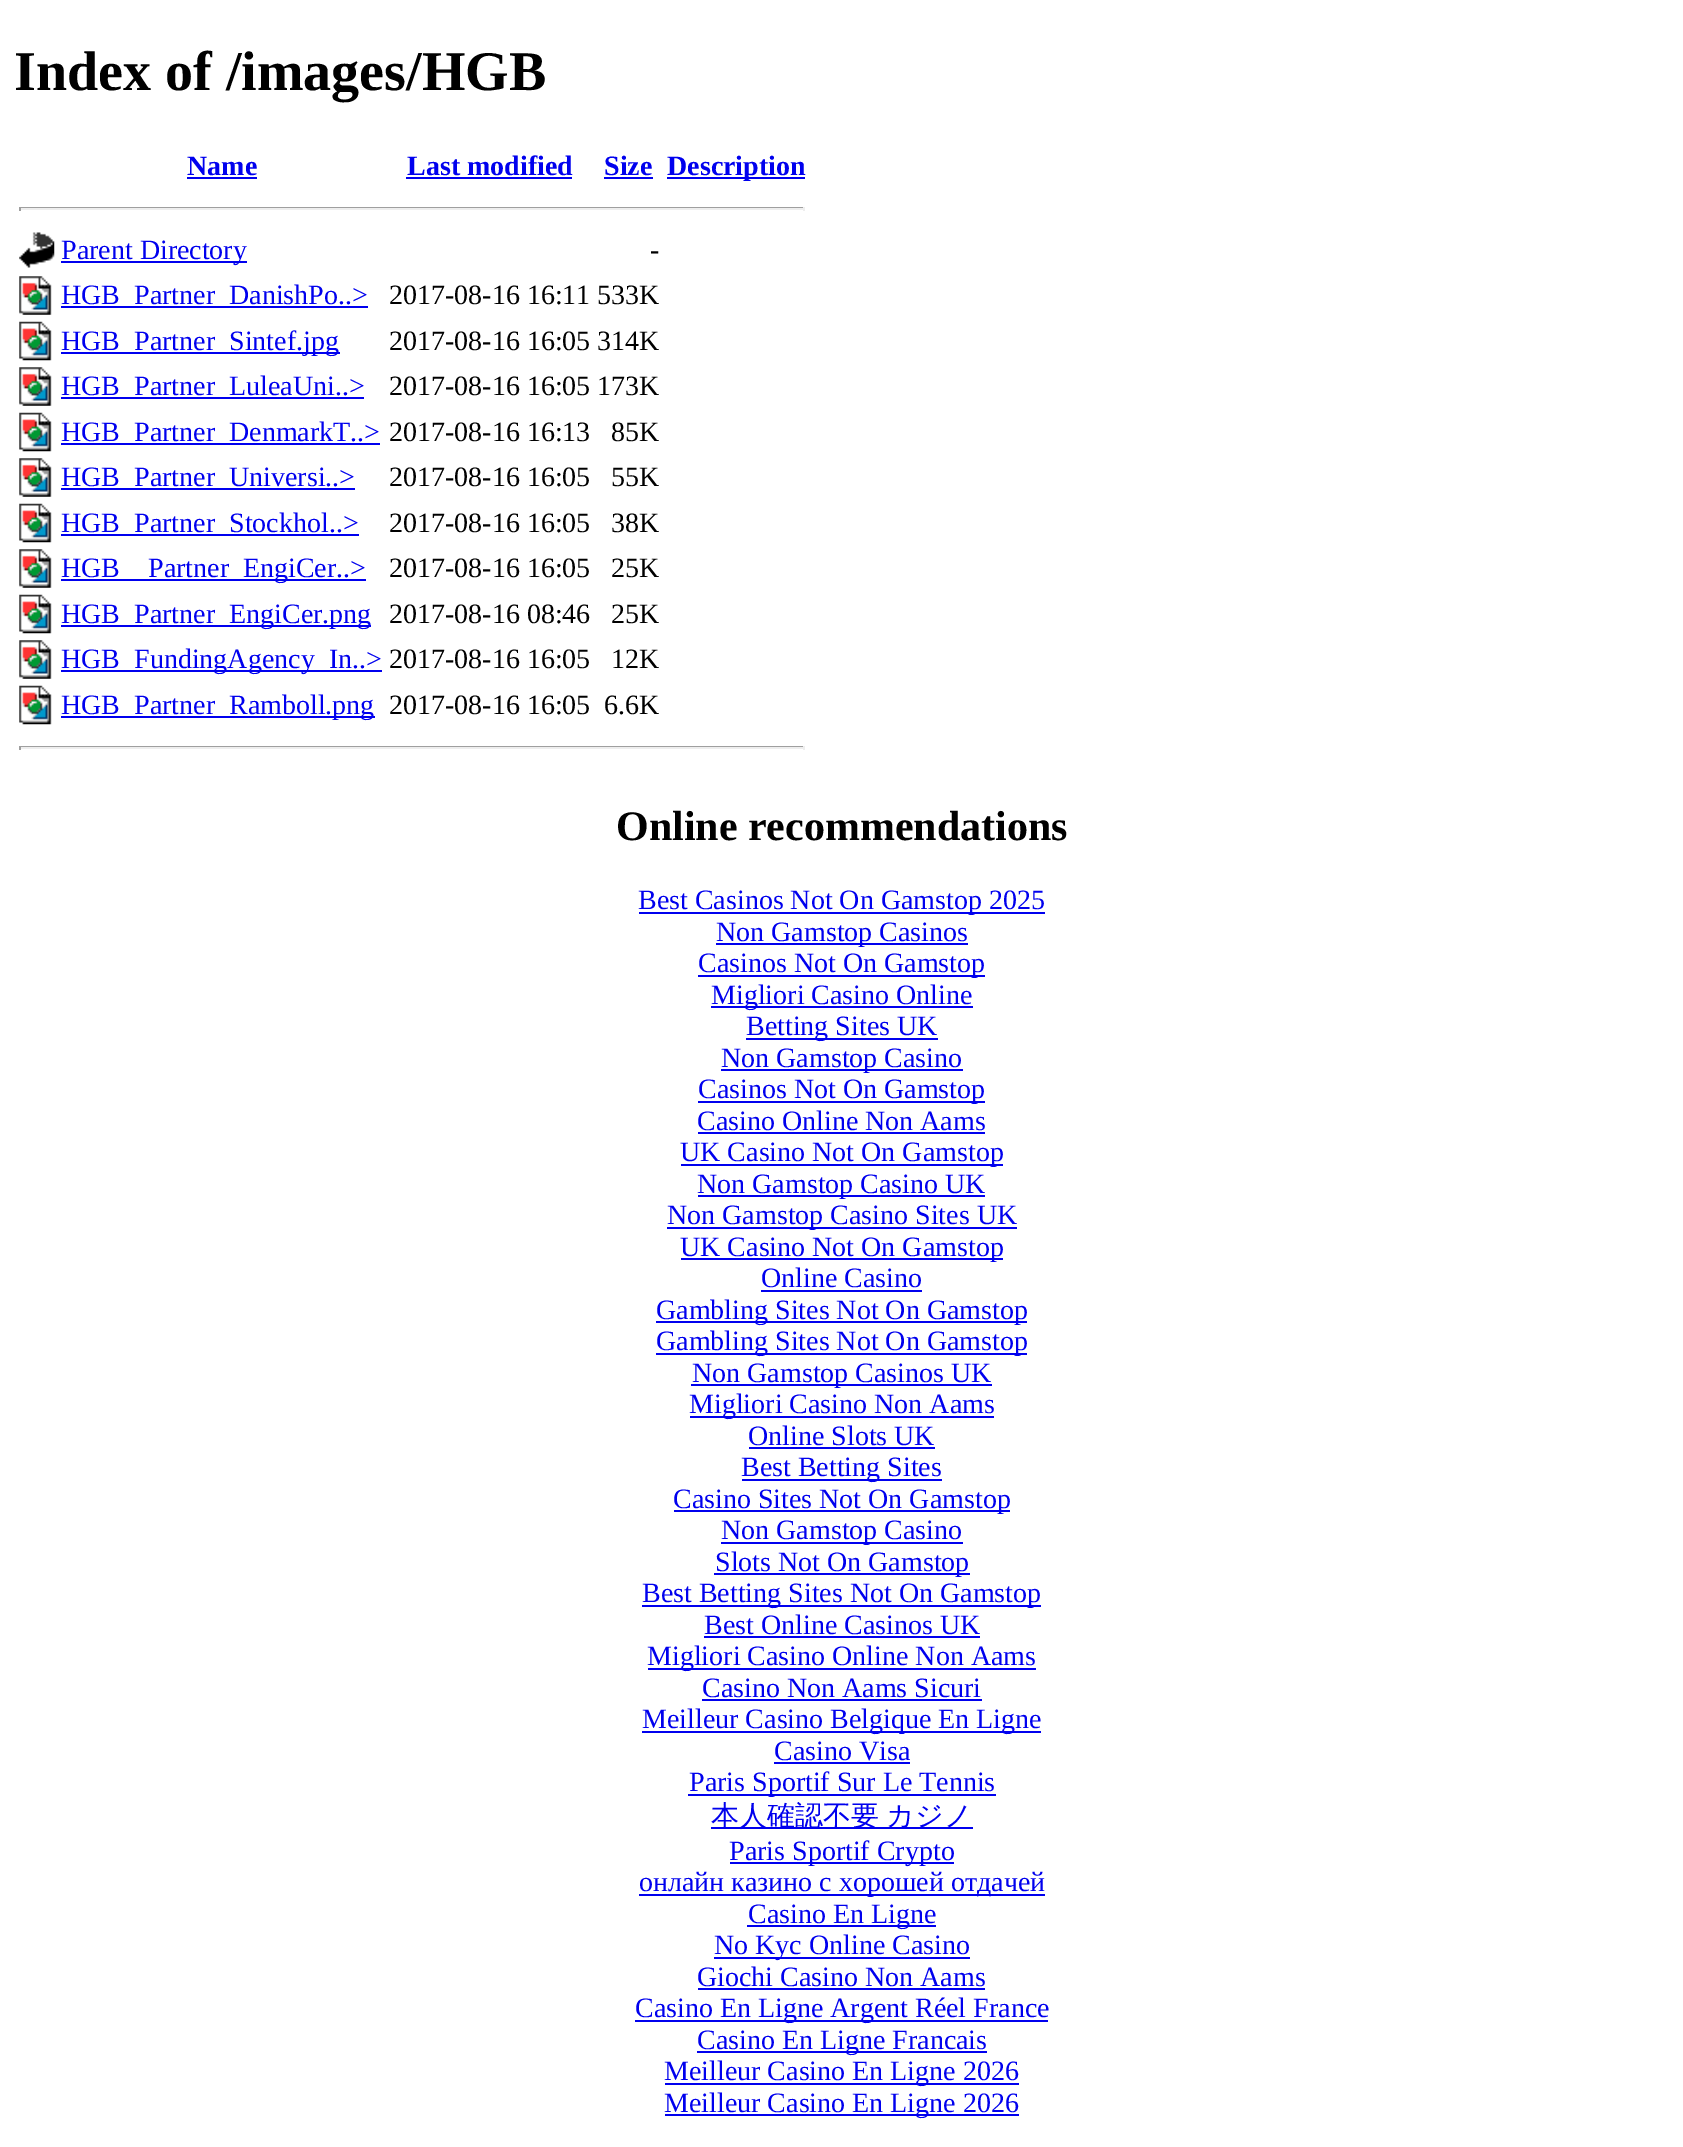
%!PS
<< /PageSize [1683 2147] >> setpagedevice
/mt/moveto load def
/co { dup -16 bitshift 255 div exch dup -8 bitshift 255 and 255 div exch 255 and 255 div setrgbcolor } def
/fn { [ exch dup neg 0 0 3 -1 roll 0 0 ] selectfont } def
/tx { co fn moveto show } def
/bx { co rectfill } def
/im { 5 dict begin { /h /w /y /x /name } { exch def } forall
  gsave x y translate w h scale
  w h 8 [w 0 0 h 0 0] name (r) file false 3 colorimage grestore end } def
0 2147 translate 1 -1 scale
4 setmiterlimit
0 0 1683 2147 16#FFFFFF bx
187 177 70 2 16#0000EE bx
406 177 166 2 16#0000EE bx
604 177 49 2 16#0000EE bx
667 177 138 2 16#0000EE bx
19 207 786 1 16#9F9F9F bx
803 207 2 4 16#EEEEEE bx
19 208 786 2 16#EEEEEE bx
19 207 2 4 16#9F9F9F bx
(media/1.raw) 19 232 36 36 im
61 261 186 2 16#0000EE bx
(media/2.raw) 19 276 33 39 im
61 306 307 2 16#0000EE bx
(media/3.raw) 19 321 33 40 im
61 352 279 2 16#0000EE bx
(media/2.raw) 19 367 33 39 im
61 397 303 2 16#0000EE bx
(media/3.raw) 19 412 33 40 im
61 443 319 2 16#0000EE bx
(media/2.raw) 19 458 33 39 im
61 488 294 2 16#0000EE bx
(media/3.raw) 19 503 33 40 im
61 534 298 2 16#0000EE bx
(media/2.raw) 19 549 33 39 im
61 579 305 2 16#0000EE bx
(media/3.raw) 19 594 33 40 im
61 625 310 2 16#0000EE bx
(media/2.raw) 19 640 33 39 im
61 670 321 2 16#0000EE bx
(media/3.raw) 19 685 33 40 im
61 716 314 2 16#0000EE bx
19 746 786 1 16#9F9F9F bx
803 746 2 4 16#EEEEEE bx
19 747 786 2 16#EEEEEE bx
19 746 2 4 16#9F9F9F bx
639 912 406 2 16#0000EE bx
716 943 252 2 16#0000EE bx
698 975 287 2 16#0000EE bx
711 1006 262 2 16#0000EE bx
746 1038 192 2 16#0000EE bx
721 1069 242 2 16#0000EE bx
698 1101 287 2 16#0000EE bx
698 1132 287 2 16#0000EE bx
681 1164 322 2 16#0000EE bx
698 1195 287 2 16#0000EE bx
667 1227 350 2 16#0000EE bx
681 1258 322 2 16#0000EE bx
761 1290 161 2 16#0000EE bx
656 1321 371 2 16#0000EE bx
656 1353 371 2 16#0000EE bx
691 1384 301 2 16#0000EE bx
690 1416 304 2 16#0000EE bx
749 1447 186 2 16#0000EE bx
742 1479 200 2 16#0000EE bx
674 1510 336 2 16#0000EE bx
721 1542 242 2 16#0000EE bx
714 1573 256 2 16#0000EE bx
642 1605 399 2 16#0000EE bx
704 1636 276 2 16#0000EE bx
648 1668 388 2 16#0000EE bx
702 1699 280 2 16#0000EE bx
642 1731 399 2 16#0000EE bx
774 1762 136 2 16#0000EE bx
688 1794 308 2 16#0000EE bx
711 1827 262 2 16#0000EE bx
730 1862 224 2 16#0000EE bx
639 1894 406 2 16#0000EE bx
747 1925 189 2 16#0000EE bx
714 1957 256 2 16#0000EE bx
698 1988 287 2 16#0000EE bx
635 2020 413 2 16#0000EE bx
697 2051 290 2 16#0000EE bx
665 2083 354 2 16#0000EE bx
665 2114 354 2 16#0000EE bx
(Index of /images/HGB) 14 90 /LiberationSerif-Bold 56 16#000000 tx
(Name) 187 175 /LiberationSerif-Bold 28 16#0000EE tx
(Last modified) 407 175 /LiberationSerif-Bold 28 16#0000EE tx
(Size) 604 175 /LiberationSerif-Bold 28 16#0000EE tx
(Description) 667 175 /LiberationSerif-Bold 28 16#0000EE tx
(Parent Directory) 61 259 /LiberationSerif-Regular 28 16#0000EE tx
(-) 650 259 /LiberationSerif-Regular 28 16#000000 tx
(HGB_Partner_DanishPo..>) 61 304 /LiberationSerif-Regular 28 16#0000EE tx
(2017-08-16 16:11 533K) 389 304 /LiberationSerif-Regular 28 16#000000 tx
(HGB_Partner_Sintef.jpg) 61 350 /LiberationSerif-Regular 28 16#0000EE tx
(2017-08-16 16:05 314K) 389 350 /LiberationSerif-Regular 28 16#000000 tx
(HGB_Partner_LuleaUni..>) 61 395 /LiberationSerif-Regular 28 16#0000EE tx
(2017-08-16 16:05 173K) 389 395 /LiberationSerif-Regular 28 16#000000 tx
(HGB_Partner_DenmarkT..>) 61 441 /LiberationSerif-Regular 28 16#0000EE tx
(2017-08-16 16:13) 389 441 /LiberationSerif-Regular 28 16#000000 tx
(85K) 611 441 /LiberationSerif-Regular 28 16#000000 tx
(HGB_Partner_Universi..>) 61 486 /LiberationSerif-Regular 28 16#0000EE tx
(2017-08-16 16:05) 389 486 /LiberationSerif-Regular 28 16#000000 tx
(55K) 611 486 /LiberationSerif-Regular 28 16#000000 tx
(HGB_Partner_Stockhol..>) 61 532 /LiberationSerif-Regular 28 16#0000EE tx
(2017-08-16 16:05) 389 532 /LiberationSerif-Regular 28 16#000000 tx
(38K) 611 532 /LiberationSerif-Regular 28 16#000000 tx
(HGB) 61 577 /LiberationSerif-Regular 28 16#0000EE tx
(Partner_EngiCer..>) 148 577 /LiberationSerif-Regular 28 16#0000EE tx
(2017-08-16 16:05) 389 577 /LiberationSerif-Regular 28 16#000000 tx
(25K) 611 577 /LiberationSerif-Regular 28 16#000000 tx
(HGB_Partner_EngiCer.png) 61 623 /LiberationSerif-Regular 28 16#0000EE tx
(2017-08-16 08:46) 389 623 /LiberationSerif-Regular 28 16#000000 tx
(25K) 611 623 /LiberationSerif-Regular 28 16#000000 tx
(HGB_FundingAgency_In..>) 61 668 /LiberationSerif-Regular 28 16#0000EE tx
(2017-08-16 16:05) 389 668 /LiberationSerif-Regular 28 16#000000 tx
(12K) 611 668 /LiberationSerif-Regular 28 16#000000 tx
(HGB_Partner_Ramboll.png) 61 714 /LiberationSerif-Regular 28 16#0000EE tx
(2017-08-16 16:05) 389 714 /LiberationSerif-Regular 28 16#000000 tx
(6.6K) 604 714 /LiberationSerif-Regular 28 16#000000 tx
(Online recommendations) 616 840 /LiberationSerif-Bold 42 16#000000 tx
(Best Casinos Not On Gamstop 2025) 638 909 /LiberationSerif-Regular 28 16#0000EE tx
(Non Gamstop Casinos) 716 941 /LiberationSerif-Regular 28 16#0000EE tx
(Casinos Not On Gamstop) 698 972 /LiberationSerif-Regular 28 16#0000EE tx
(Migliori Casino Online) 711 1004 /LiberationSerif-Regular 28 16#0000EE tx
(Betting Sites UK) 746 1035 /LiberationSerif-Regular 28 16#0000EE tx
(Non Gamstop Casino) 721 1067 /LiberationSerif-Regular 28 16#0000EE tx
(Casinos Not On Gamstop) 698 1098 /LiberationSerif-Regular 28 16#0000EE tx
(Casino Online Non Aams) 697 1130 /LiberationSerif-Regular 28 16#0000EE tx
(UK Casino Not On Gamstop) 680 1161 /LiberationSerif-Regular 28 16#0000EE tx
(Non Gamstop Casino UK) 697 1193 /LiberationSerif-Regular 28 16#0000EE tx
(Non Gamstop Casino Sites UK) 667 1224 /LiberationSerif-Regular 28 16#0000EE tx
(UK Casino Not On Gamstop) 680 1256 /LiberationSerif-Regular 28 16#0000EE tx
(Online Casino) 761 1287 /LiberationSerif-Regular 28 16#0000EE tx
(Gambling Sites Not On Gamstop) 656 1319 /LiberationSerif-Regular 28 16#0000EE tx
(Gambling Sites Not On Gamstop) 656 1350 /LiberationSerif-Regular 28 16#0000EE tx
(Non Gamstop Casinos UK) 692 1382 /LiberationSerif-Regular 28 16#0000EE tx
(Migliori Casino Non Aams) 689 1413 /LiberationSerif-Regular 28 16#0000EE tx
(Online Slots UK) 748 1445 /LiberationSerif-Regular 28 16#0000EE tx
(Best Betting Sites) 741 1476 /LiberationSerif-Regular 28 16#0000EE tx
(Casino Sites Not On Gamstop) 673 1508 /LiberationSerif-Regular 28 16#0000EE tx
(Non Gamstop Casino) 721 1539 /LiberationSerif-Regular 28 16#0000EE tx
(Slots Not On Gamstop) 715 1571 /LiberationSerif-Regular 28 16#0000EE tx
(Best Betting Sites Not On Gamstop) 642 1602 /LiberationSerif-Regular 28 16#0000EE tx
(Best Online Casinos UK) 704 1634 /LiberationSerif-Regular 28 16#0000EE tx
(Migliori Casino Online Non Aams) 647 1665 /LiberationSerif-Regular 28 16#0000EE tx
(Casino Non Aams Sicuri) 702 1697 /LiberationSerif-Regular 28 16#0000EE tx
(Meilleur Casino Belgique En Ligne) 642 1728 /LiberationSerif-Regular 28 16#0000EE tx
(Casino Visa) 774 1760 /LiberationSerif-Regular 28 16#0000EE tx
(Paris Sportif Sur Le Tennis) 689 1791 /LiberationSerif-Regular 28 16#0000EE tx
/WenQuanYiZenHei-Medium 28 fn
711 1825 mt -1 0 32 (本人確認不要 カジノ) widthshow
(Paris Sportif Crypto) 729 1860 /LiberationSerif-Regular 28 16#0000EE tx
(онлайн казино с хорошей отдачей) 639 1891 /LiberationSerif-Regular 28 16#0000EE tx
(Casino En Ligne) 748 1923 /LiberationSerif-Regular 28 16#0000EE tx
(No Kyc Online Casino) 714 1954 /LiberationSerif-Regular 28 16#0000EE tx
(Giochi Casino Non Aams) 697 1986 /LiberationSerif-Regular 28 16#0000EE tx
(Casino En Ligne Argent Réel France) 635 2017 /LiberationSerif-Regular 28 16#0000EE tx
(Casino En Ligne Francais) 697 2049 /LiberationSerif-Regular 28 16#0000EE tx
(Meilleur Casino En Ligne 2026) 664 2080 /LiberationSerif-Regular 28 16#0000EE tx
(Meilleur Casino En Ligne 2026) 664 2112 /LiberationSerif-Regular 28 16#0000EE tx
showpage
